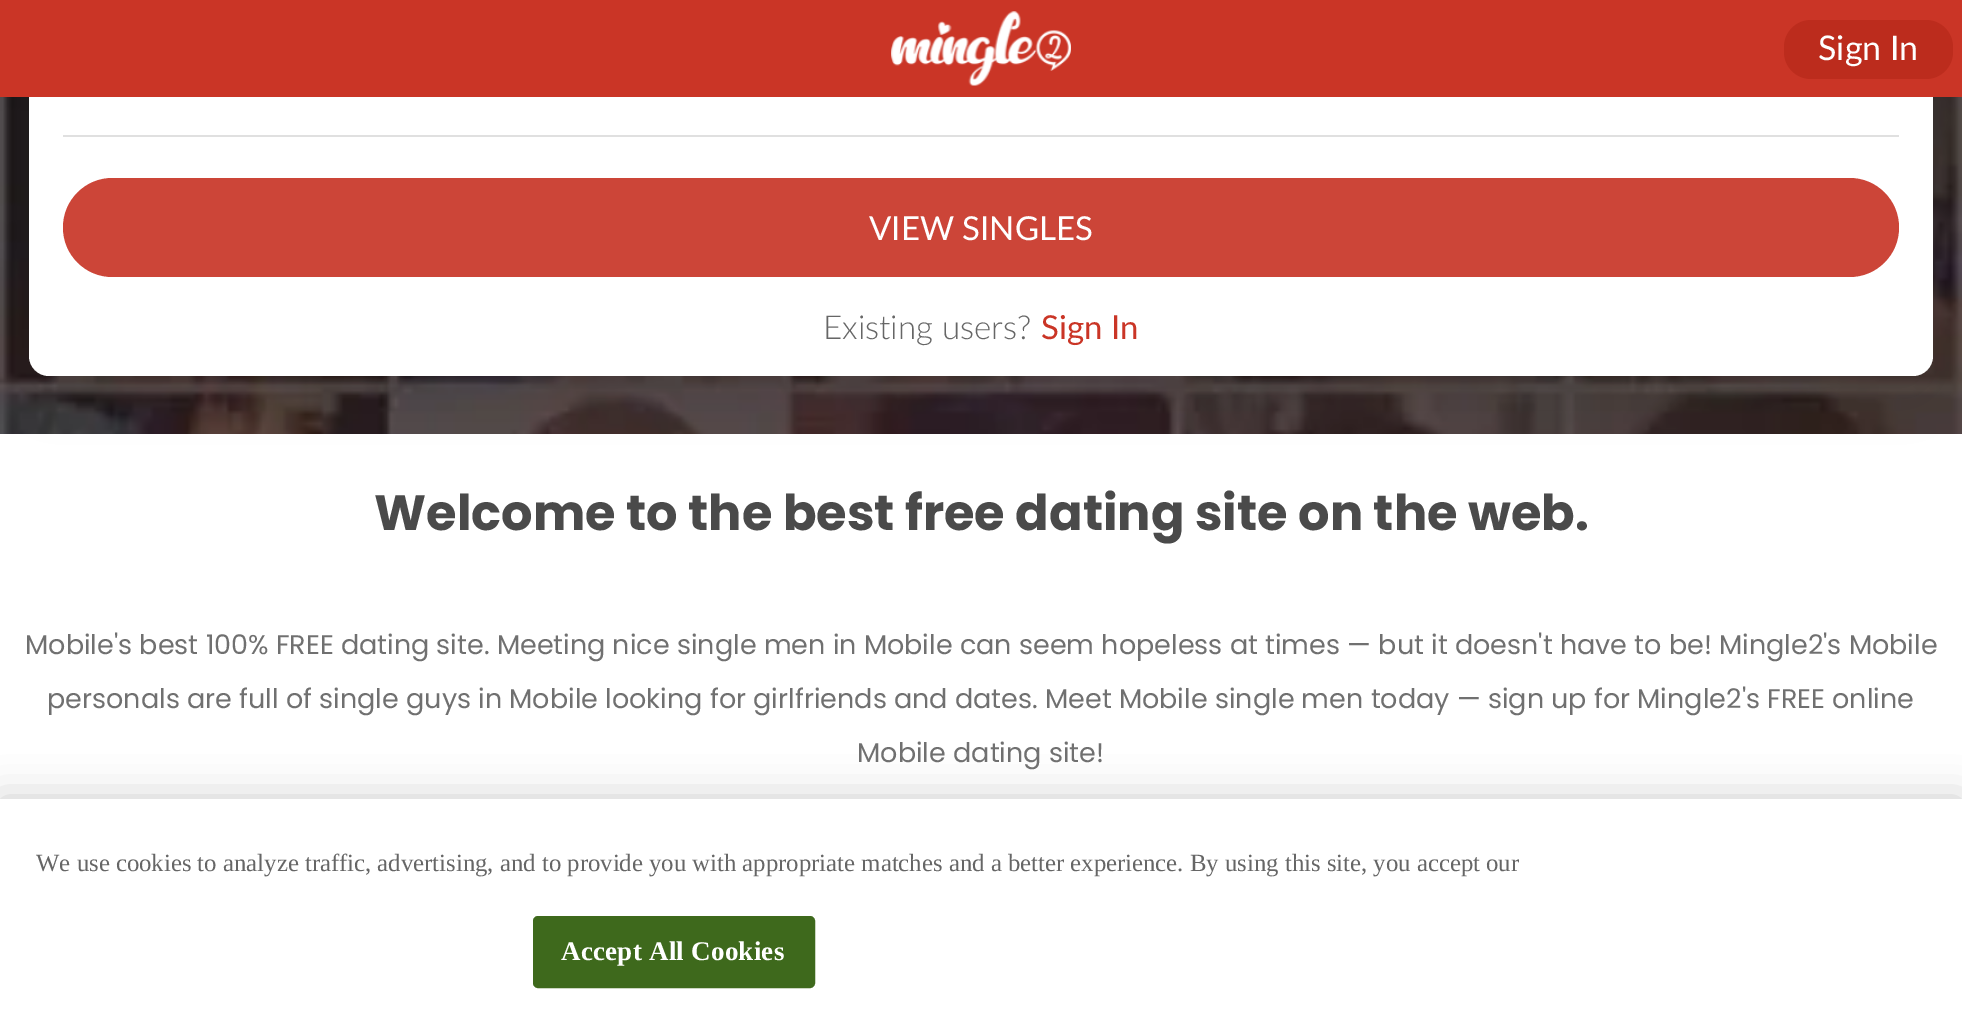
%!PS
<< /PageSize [1962 1022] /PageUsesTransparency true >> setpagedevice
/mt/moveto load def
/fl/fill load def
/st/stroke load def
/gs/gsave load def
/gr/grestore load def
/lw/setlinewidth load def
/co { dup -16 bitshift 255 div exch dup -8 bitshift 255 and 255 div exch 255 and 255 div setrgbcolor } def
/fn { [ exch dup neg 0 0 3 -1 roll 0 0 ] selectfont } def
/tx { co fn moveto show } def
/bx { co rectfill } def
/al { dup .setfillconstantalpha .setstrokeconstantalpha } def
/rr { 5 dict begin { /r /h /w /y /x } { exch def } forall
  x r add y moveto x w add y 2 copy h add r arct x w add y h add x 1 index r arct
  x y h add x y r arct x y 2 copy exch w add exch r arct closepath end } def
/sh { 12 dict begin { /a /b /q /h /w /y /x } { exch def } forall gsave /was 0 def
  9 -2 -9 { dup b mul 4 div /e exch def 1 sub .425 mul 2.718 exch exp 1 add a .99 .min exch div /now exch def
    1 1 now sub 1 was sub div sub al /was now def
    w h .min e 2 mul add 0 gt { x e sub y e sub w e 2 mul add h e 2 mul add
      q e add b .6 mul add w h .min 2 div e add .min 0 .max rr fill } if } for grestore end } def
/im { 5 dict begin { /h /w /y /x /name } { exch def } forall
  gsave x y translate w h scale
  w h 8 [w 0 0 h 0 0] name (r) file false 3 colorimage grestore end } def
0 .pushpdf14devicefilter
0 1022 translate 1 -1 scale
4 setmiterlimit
0 0 1962 1022 16#FFFFFF bx
(media/1.raw) 0 97 1962 337 im
16#262727 co
29 -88 1904 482 20 22.5 .18 sh
16#FFFFFF co
29 -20 1904 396 20 rr fl
0 0 1962 97 16#CA3526 bx
(media/2.raw) 891 11 180 75 im
16#BC2C1D co
1784 20 169 59 27 rr fl
63 135 1836 2 16#E0E0E0 bx
16#CC4538 co
63 178 1836 99 49.5 rr fl
16#000000 co
0 799 1962 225 0 20 .2 sh
0 799 1962 223 16#FFFFFF bx
16#3E691C co
534 917 280 70 4 rr gs fl gr
2 lw
st
(Sign In) 1818 60 /Lato-Regular 34 16#FFFFFF tx
(VIEW SINGLES) 869 240 /Lato-Regular 33 16#FFFFFF tx
(Existing users?) 823 339 /Lato-Light 33 16#666666 tx
(Sign In) 1041 339 /Lato-Regular 33 16#CA3526 tx
(Welcome to the best free dating site on the web.) 374 530 /Poppins-Bold 49.5 16#4A4A4A tx
(Mobile's best 100% FREE dating site. Meeting nice single men in Mobile can seem hopeless at times — but it doesn't have to be! Mingle2's Mobile) 25 654 /Poppins-Regular 27 16#707070 tx
(personals are full of single guys in Mobile looking for girlfriends and dates. Meet Mobile single men today — sign up for Mingle2's FREE online) 47 708 /Poppins-Regular 27 16#707070 tx
(Mobile dating site!) 857 762 /Poppins-Regular 27 16#707070 tx
(We use cookies to analyze traffic, advertising, and to provide you with appropriate matches and a better experience. By using this site, you accept our) 36 871 /LiberationSerif-Regular 24.75 16#666666 tx
/LiberationSerif-Bold 27 fn
16#FFFFFF co
561 960 mt .25 0 (Accept All Cookies) ashow
.poppdf14devicefilter showpage
